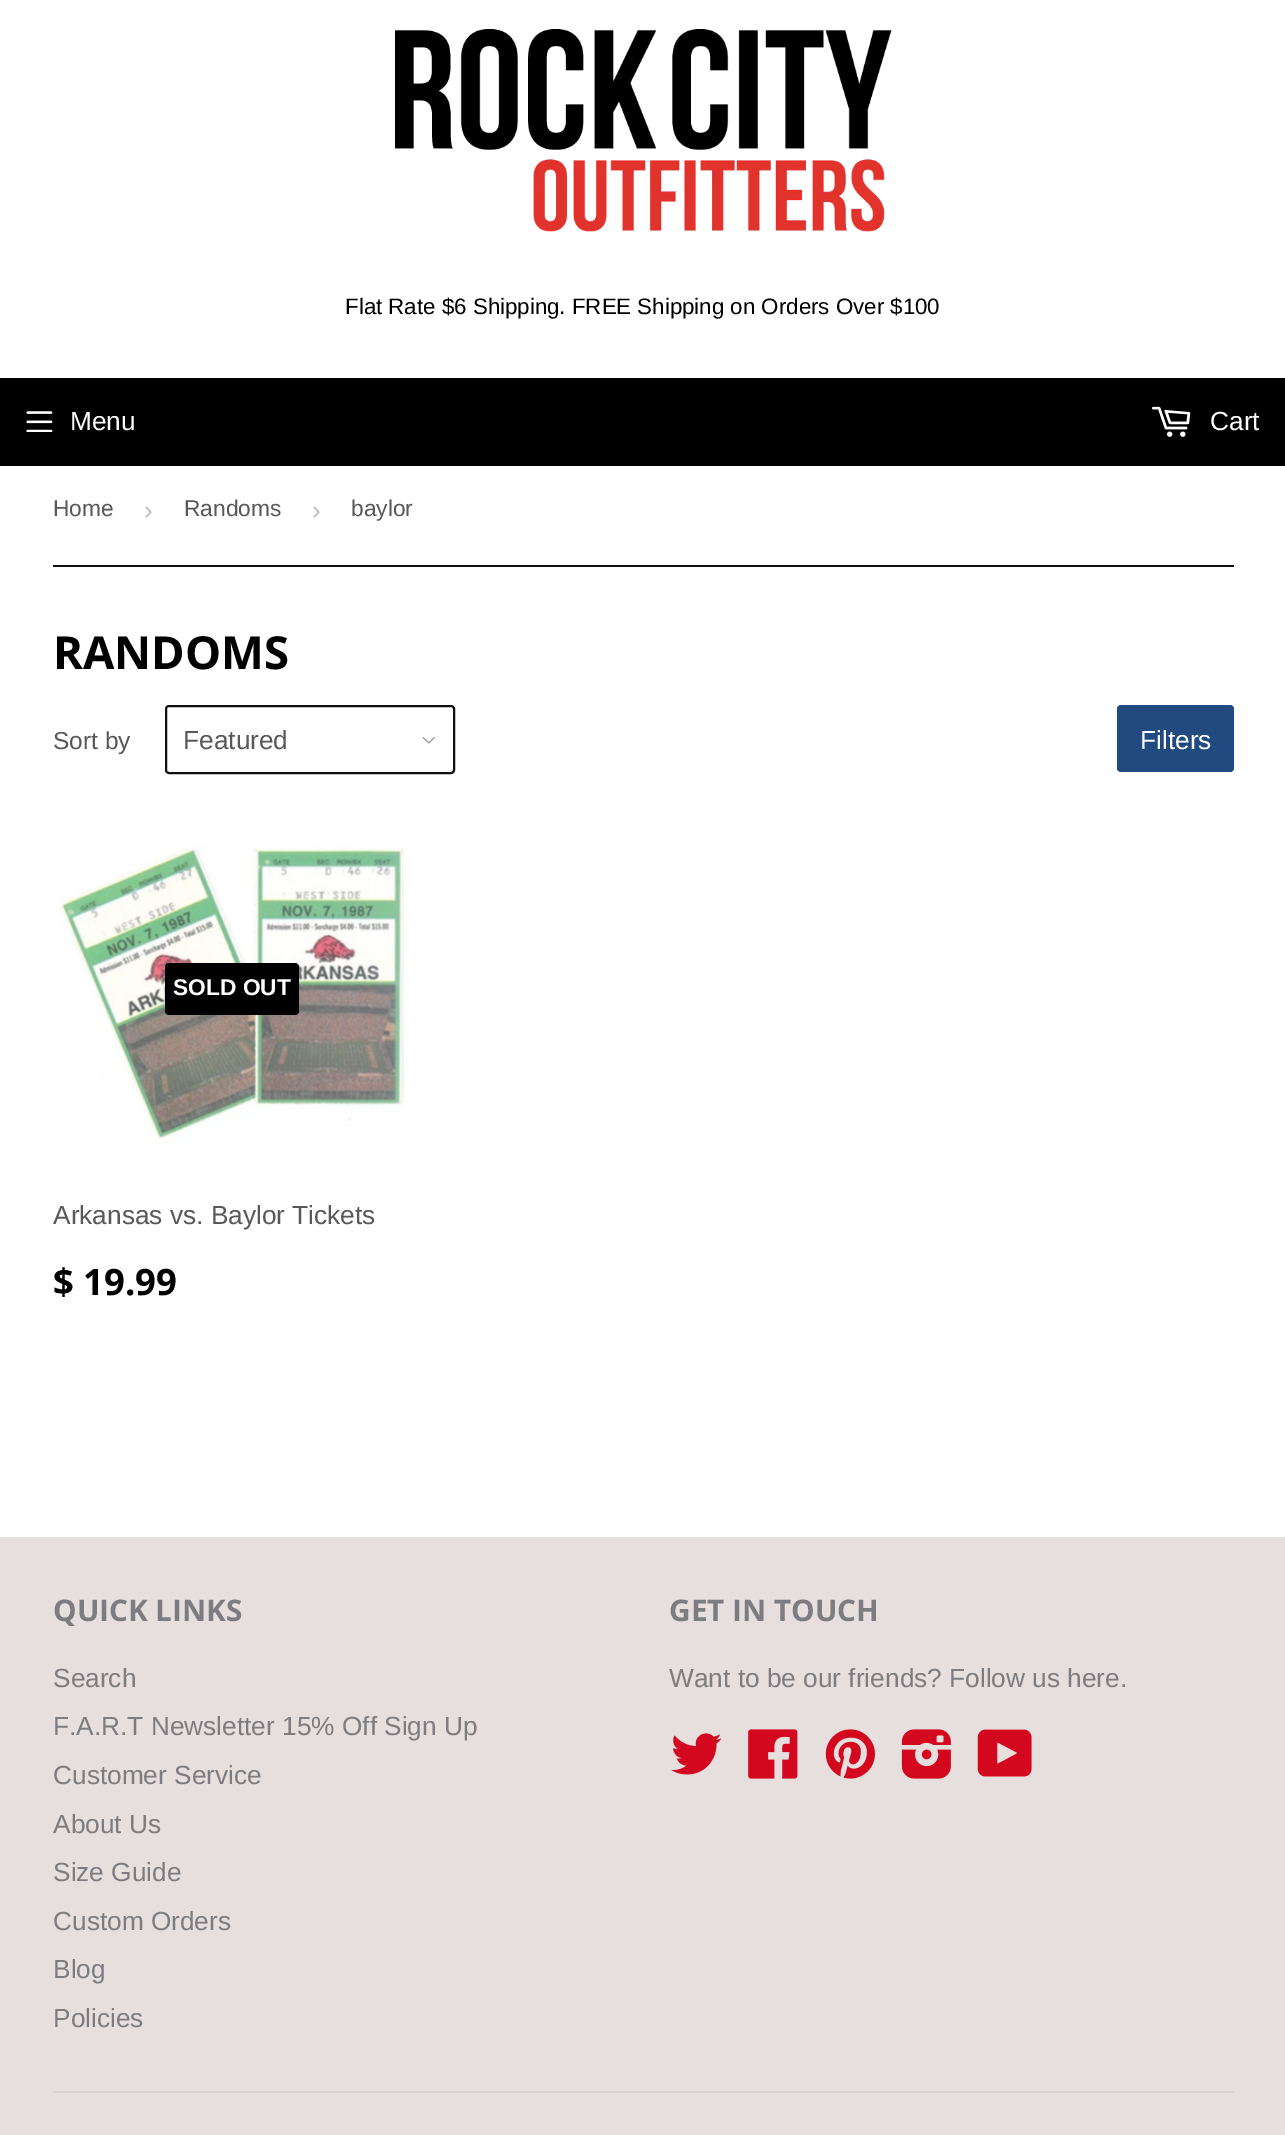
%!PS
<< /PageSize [1285 2135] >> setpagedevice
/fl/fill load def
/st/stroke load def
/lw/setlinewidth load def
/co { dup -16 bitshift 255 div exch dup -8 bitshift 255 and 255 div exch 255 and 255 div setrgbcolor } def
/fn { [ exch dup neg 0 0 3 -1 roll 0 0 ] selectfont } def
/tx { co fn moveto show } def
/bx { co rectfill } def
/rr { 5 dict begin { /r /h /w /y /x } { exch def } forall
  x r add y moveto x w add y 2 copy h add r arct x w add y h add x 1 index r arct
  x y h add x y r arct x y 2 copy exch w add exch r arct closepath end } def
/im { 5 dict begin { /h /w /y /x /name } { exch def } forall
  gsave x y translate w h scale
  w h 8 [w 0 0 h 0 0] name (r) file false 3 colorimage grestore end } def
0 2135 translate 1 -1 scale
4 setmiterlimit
0 0 1285 2135 16#FFFFFF bx
(media/1.raw) 395 29 497 203 im
0 378 1285 88 16#000000 bx
(media/2.raw) 26 411 27 21 im
(media/3.raw) 1151 406 40 31 im
53 565 1181 2 16#111010 bx
(media/4.raw) 422 737 13 7 im
2 lw
166 706 288 67 3 rr st
16#204A80 co
1117 705 117 67 4 rr fl
(media/5.raw) 59 845 347 299 im
16#000000 co
165 963 134 52 4 rr fl
0 1537 1285 598 16#E7DEDE bx
(media/6.raw) 671 1733 51 42 im
(media/7.raw) 748 1729 50 50 im
(media/8.raw) 825 1729 50 50 im
(media/9.raw) 901 1729 50 50 im
(media/10.raw) 977 1729 55 48 im
53 2091 1181 2 16#DCCFCF bx
(Flat Rate $6 Shipping. FREE Shipping on Orders Over $100) 345 314 /LiberationSans-Regular 22.3 16#000000 tx
(Menu) 70 430 /LiberationSans-Regular 26.25 16#FFFFFF tx
(Cart) 1210 430 /LiberationSans-Regular 26.25 16#FFFFFF tx
(Home) 53 516 /LiberationSans-Regular 22.75 16#585858 tx
(›) 144 519 /LiberationSans-Regular 26.25 16#BBBBBB tx
(Randoms) 184 516 /LiberationSans-Regular 22.75 16#585858 tx
(›) 312 519 /LiberationSans-Regular 26.25 16#BBBBBB tx
(baylor) 351 516 /LiberationSans-Regular 22.75 16#585858 tx
(RANDOMS) 53 669 /OpenSans-Bold 45.5 16#000000 tx
(Sort by) 53 749 /LiberationSans-Regular 24.5 16#585858 tx
(Featured) 183 749 /LiberationSans-Regular 26.25 16#585858 tx
(Filters) 1140 749 /LiberationSans-Regular 26.25 16#FFFFFF tx
(SOLD OUT) 173 995 /LiberationSans-Bold 22.75 16#FFFFFF tx
(Arkansas vs. Baylor Tickets) 53 1224 /LiberationSans-Regular 26.25 16#585858 tx
($ 19.99) 53 1295 /OpenSans-Bold 36.5 16#000000 tx
(QUICK LINKS) 53 1621 /OpenSans-Bold 29.75 16#7D7D81 tx
(Search) 53 1687 /LiberationSans-Regular 26.25 16#7D7D81 tx
(F.A.R.T Newsletter 15% Off Sign Up) 53 1735 /LiberationSans-Regular 26.25 16#7D7D81 tx
(Customer Service) 53 1784 /LiberationSans-Regular 26.25 16#7D7D81 tx
(About Us) 53 1833 /LiberationSans-Regular 26.25 16#7D7D81 tx
(Size Guide) 53 1881 /LiberationSans-Regular 26.25 16#7D7D81 tx
(Custom Orders) 53 1930 /LiberationSans-Regular 26.25 16#7D7D81 tx
(Blog) 53 1978 /LiberationSans-Regular 26.25 16#7D7D81 tx
(Policies) 53 2027 /LiberationSans-Regular 26.25 16#7D7D81 tx
(GET IN TOUCH) 669 1621 /OpenSans-Bold 29.75 16#7D7D81 tx
(Want to be our friends? Follow us here.) 669 1687 /LiberationSans-Regular 26.25 16#7D7D81 tx
showpage
